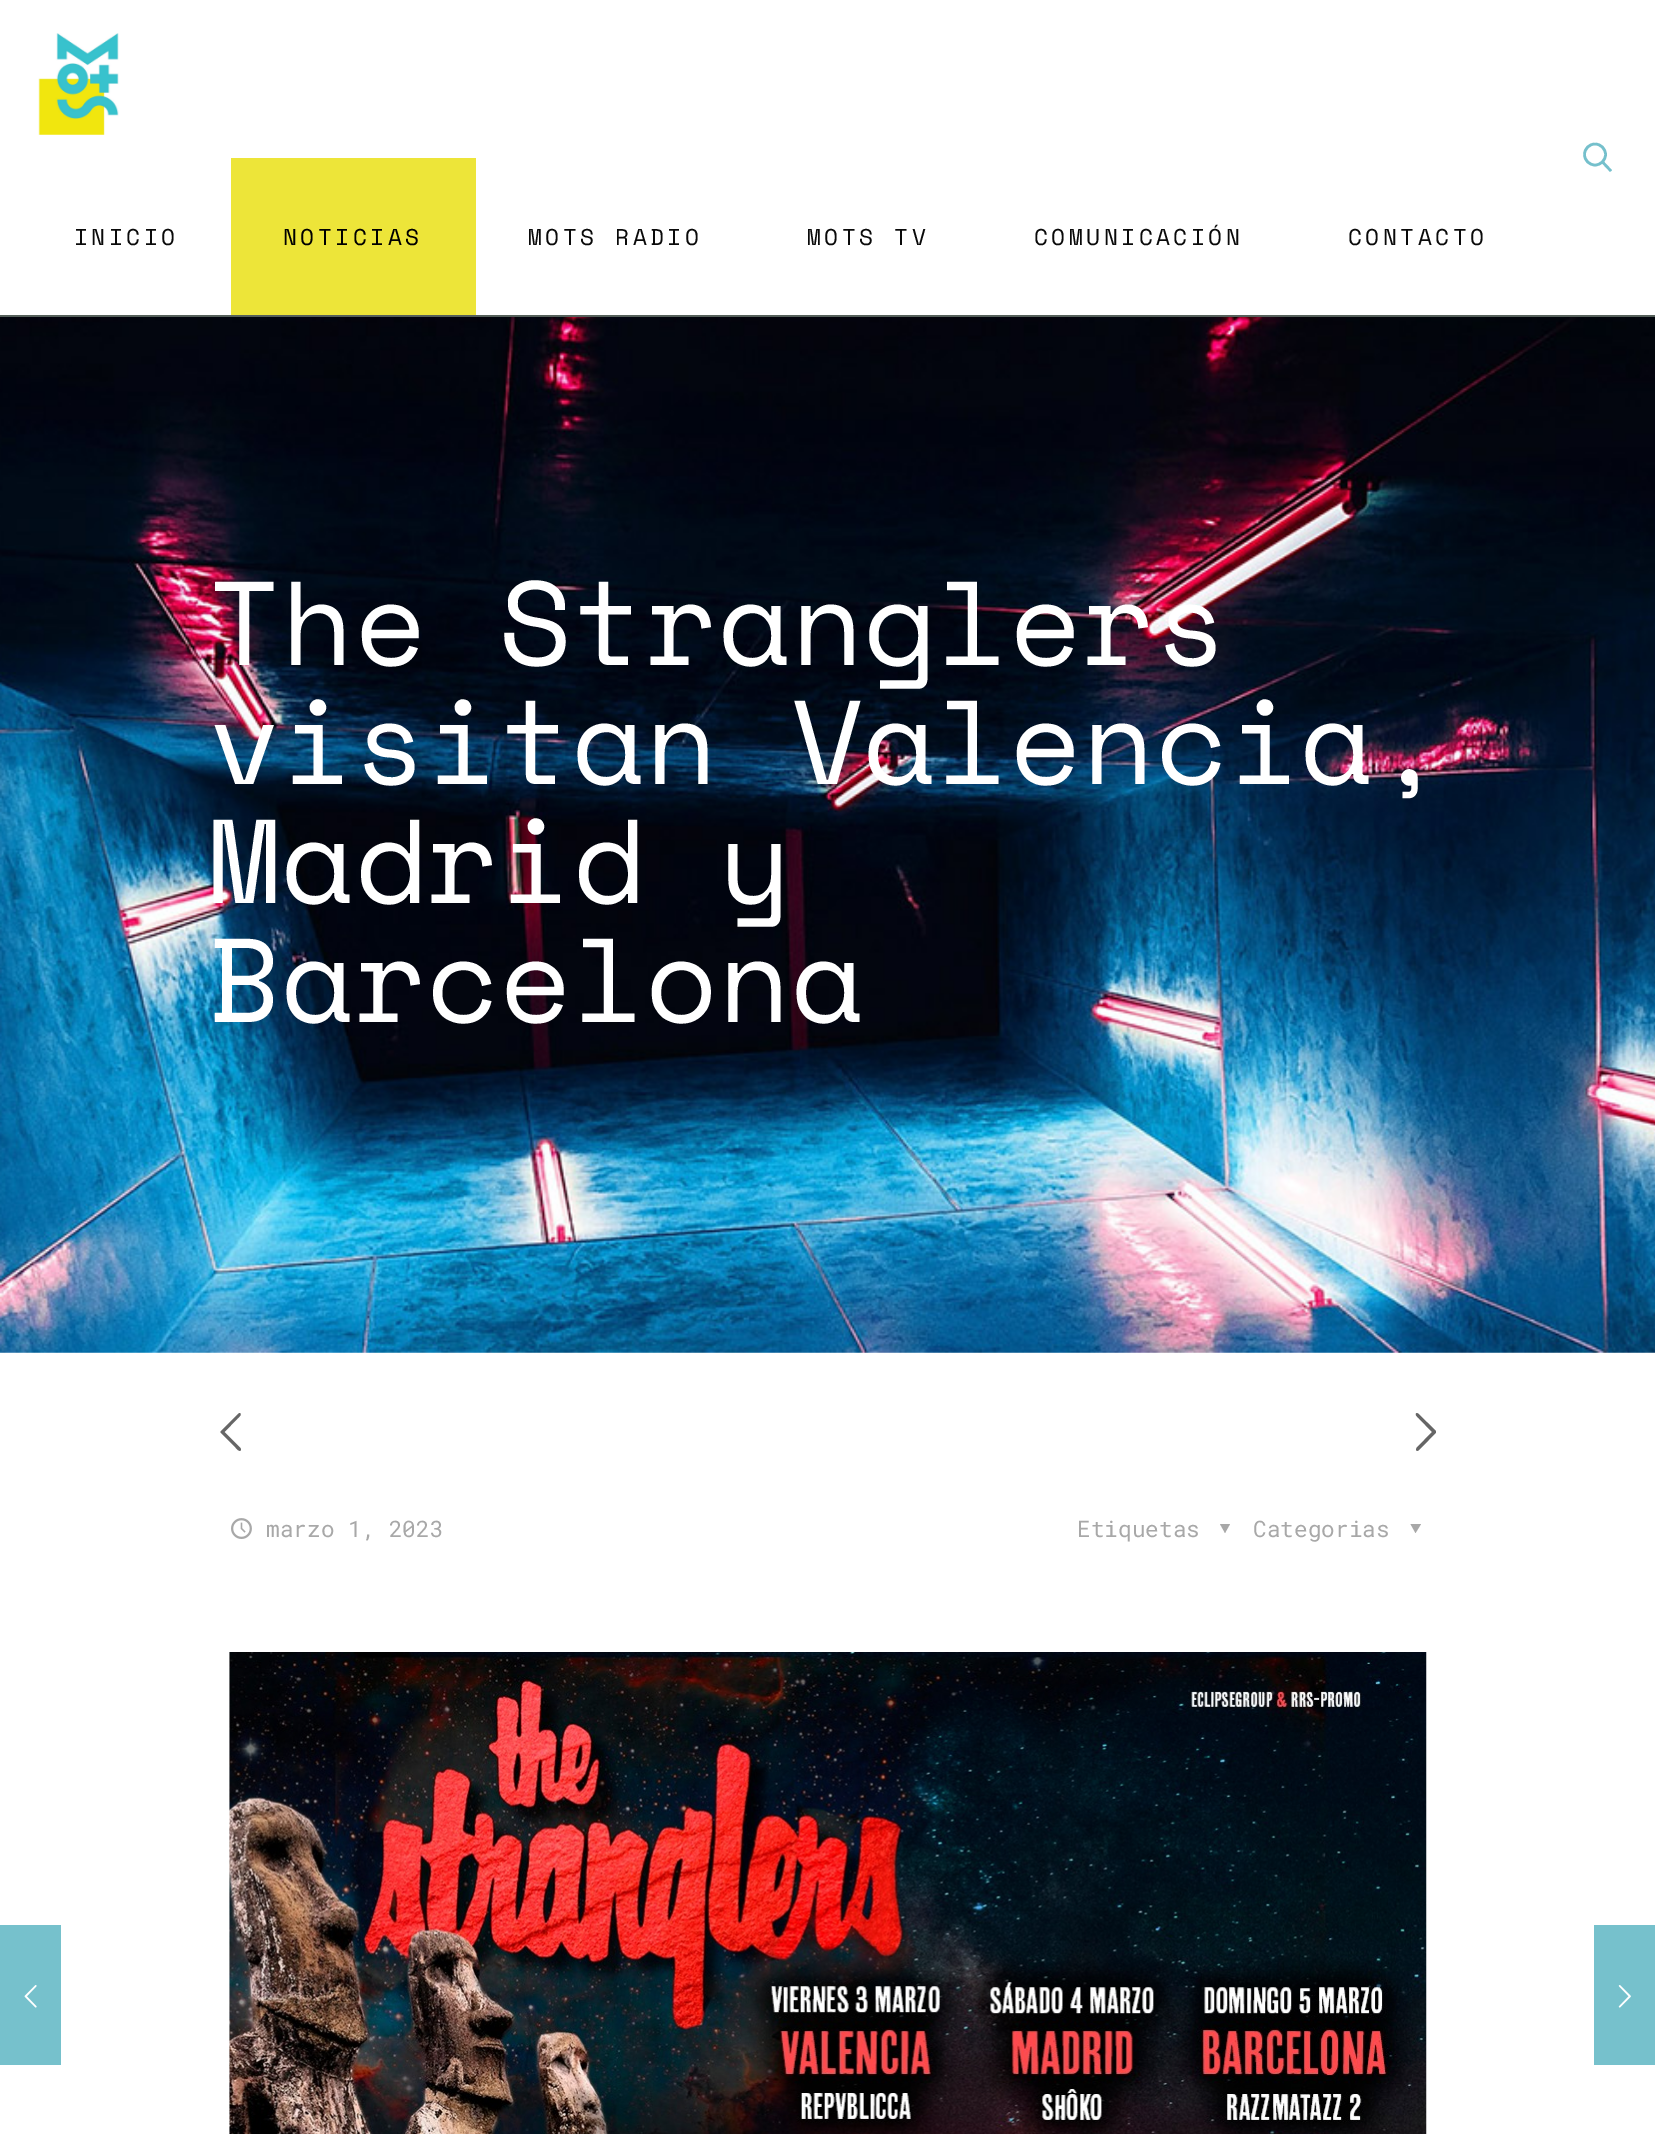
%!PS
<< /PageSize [1655 2134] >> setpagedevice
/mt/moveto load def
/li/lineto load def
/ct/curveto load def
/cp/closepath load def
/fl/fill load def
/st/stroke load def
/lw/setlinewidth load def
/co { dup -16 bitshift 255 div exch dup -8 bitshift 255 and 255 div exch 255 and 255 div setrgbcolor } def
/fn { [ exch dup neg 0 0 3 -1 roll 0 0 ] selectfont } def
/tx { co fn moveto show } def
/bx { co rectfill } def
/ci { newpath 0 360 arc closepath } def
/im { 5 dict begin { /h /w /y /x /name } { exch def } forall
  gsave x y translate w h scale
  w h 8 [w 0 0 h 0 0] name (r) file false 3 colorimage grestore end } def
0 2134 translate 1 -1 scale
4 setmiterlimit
0 0 1655 2134 16#FFFFFF bx
(media/1.raw) 0 317 1655 1036 im
0 315 1655 2 16#55605A bx
16#75C0CC co
2.6 lw
1595 154.5 10.5 ci st
1602.5 162 mt 1611 171 li st
(media/2.raw) 38 33 81 102 im
231 158 245 157 16#EDE539 bx
16#666666 co
240.5 1448 mt 241 1449.5 li 240 1453.5 235.5 1447.5 235.5 1447.5 ct 220.5 1432.5 li 220.5 1431.5 li 221 1431 li 238.5 1413.5 li 239.5 1413 li 243 1414 238 1418 237.5 1418.5 ct 224.5 1432 li cp fl
1416.5 1448 mt 1432 1432 li 1419 1418.5 li 1418.5 1418 1413.5 1414 1417 1413 ct 1418 1413.5 li 1436 1431 li 1436 1431.5 li 1436 1432.5 li 1421.5 1447.5 li 1421 1447.5 1417 1453.5 1416 1449.5 ct cp fl
(media/3.raw) 231 1518 21 21 im
16#A8A8A8 co
1230 1524 mt 1225 1533 li 1220 1524 li cp fl
1421 1524 mt 1415.5 1533 li 1410.5 1524 li cp fl
(media/4.raw) 229 1652 1198 482 im
0 1925 61 140 16#76C1CC bx
(media/5.raw) 24 1985 13 23 im
1594 1925 61 140 16#76C1CC bx
(media/6.raw) 1618 1985 13 23 im
/SpaceMono-Regular 22.75 fn
16#0A0A0A co
74 245 mt 3.5 0 (INICIO) ashow
16#000000 co
283 245 mt 3.5 0 (NOTICIAS) ashow
16#0A0A0A co
528 245 mt 3.5 0 (MOTS RADIO) ashow
807 245 mt 3.5 0 (MOTS TV) ashow
1034 245 mt 3.5 0 (COMUNICACIÓN) ashow
1348 245 mt 3.5 0 (CONTACTO) ashow
(The Stranglers) 208 665 /SpaceMono-Regular 119 16#FFFFFF tx
(visitan Valencia,) 208 784 /SpaceMono-Regular 119 16#FFFFFF tx
(Madrid y) 208 903 /SpaceMono-Regular 119 16#FFFFFF tx
(Barcelona) 208 1022 /SpaceMono-Regular 119 16#FFFFFF tx
(marzo 1, 2023) 266 1537 /RobotoMono-Regular 22.75 16#A8A8A8 tx
(Etiquetas) 1077 1537 /RobotoMono-Regular 22.75 16#A8A8A8 tx
(Categorias) 1253 1537 /RobotoMono-Regular 22.75 16#A8A8A8 tx
showpage
